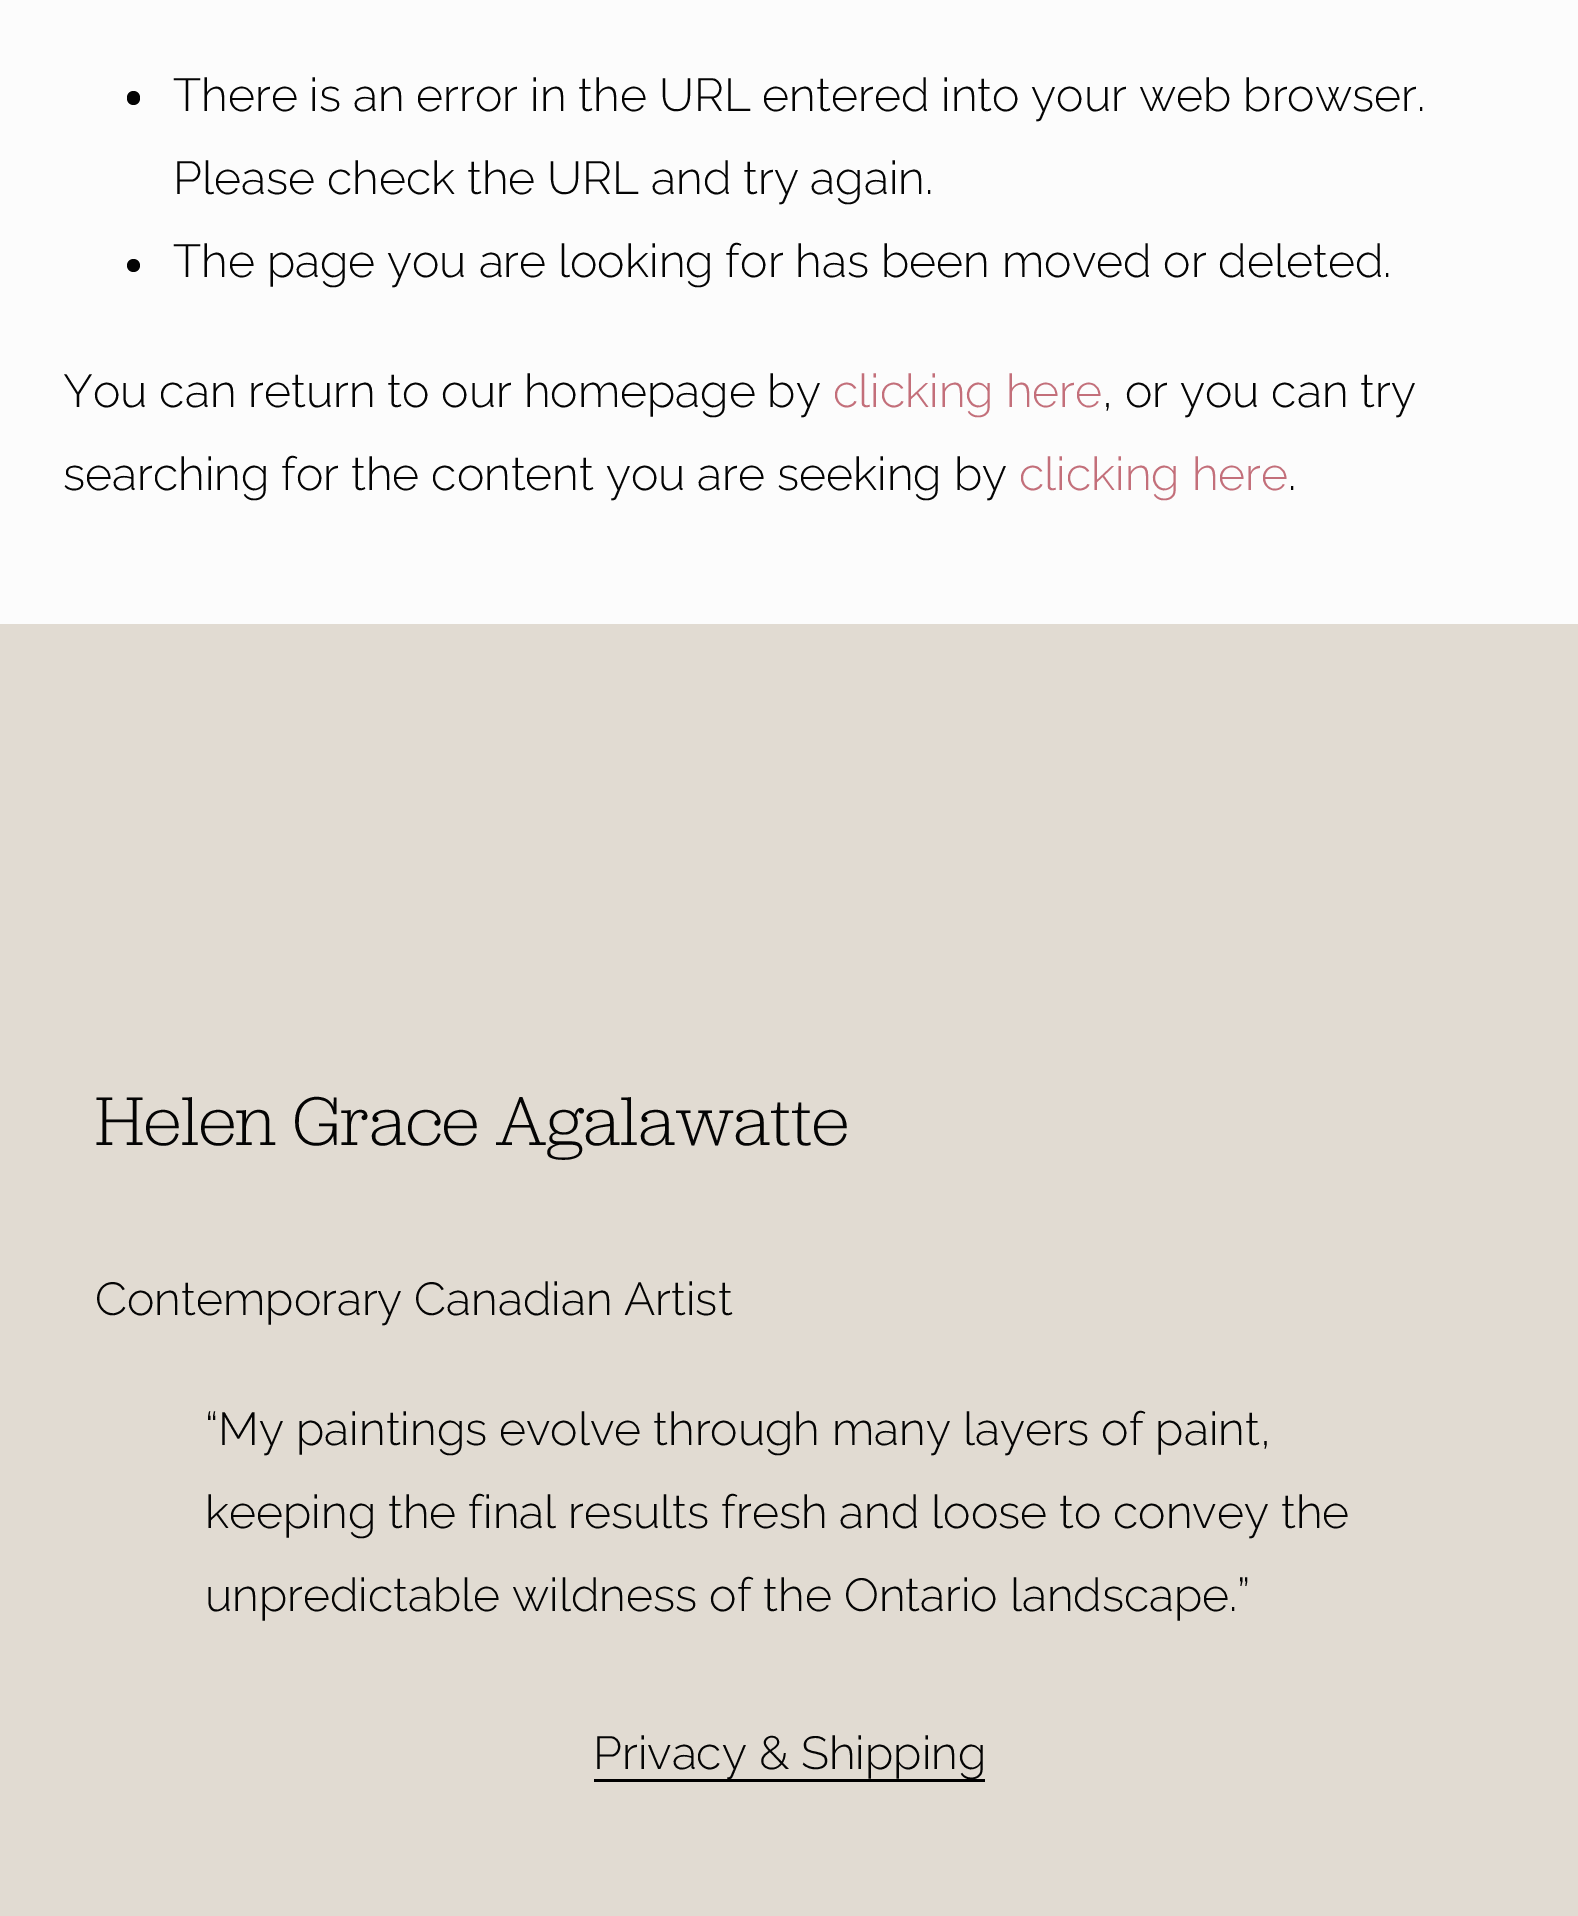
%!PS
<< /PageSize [1578 1916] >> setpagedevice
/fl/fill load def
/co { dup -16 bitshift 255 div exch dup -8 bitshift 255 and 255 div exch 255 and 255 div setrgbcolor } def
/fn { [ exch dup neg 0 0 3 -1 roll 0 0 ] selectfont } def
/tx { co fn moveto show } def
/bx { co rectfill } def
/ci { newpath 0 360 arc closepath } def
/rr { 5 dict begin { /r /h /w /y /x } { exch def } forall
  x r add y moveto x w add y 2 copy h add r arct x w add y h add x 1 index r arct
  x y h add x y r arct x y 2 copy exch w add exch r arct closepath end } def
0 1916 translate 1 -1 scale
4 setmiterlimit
0 0 1578 1916 16#FCFCFC bx
16#040404 co
127 91 13 14 6.5 rr fl
133.5 265.5 6.5 ci fl
0 624 1578 1292 16#E1DBD2 bx
594 1779 391 3 16#000000 bx
(There is an error in the URL entered into your web browser.) 173 111 /Raleway-Light 46.3 16#040404 tx
(Please check the URL and try again.) 173 194 /Raleway-Light 46.3 16#040404 tx
(The page you are looking for has been moved or deleted.) 173 277 /Raleway-Light 46.3 16#040404 tx
(You can return to our homepage by) 63 407 /Raleway-Light 46.3 16#040404 tx
(clicking here) 833 407 /Raleway-Light 46.3 16#C36F7A tx
(, or you can try) 1102 407 /Raleway-Light 46.3 16#040404 tx
(searching for the content you are seeking by) 63 490 /Raleway-Light 46.3 16#040404 tx
(clicking here) 1019 490 /Raleway-Light 46.3 16#C36F7A tx
(.) 1288 490 /Raleway-Light 46.3 16#040404 tx
(Helen Grace Agalawatte) 95 1145 /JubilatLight-Light 71.6 16#040404 tx
(Contemporary Canadian Artist) 95 1315 /Raleway-Light 46.3 16#040404 tx
(“My paintings evolve through many layers of paint,) 205 1445 /Raleway-Light 46.3 16#040404 tx
(keeping the final results fresh and loose to convey the) 205 1528 /Raleway-Light 46.3 16#040404 tx
(unpredictable wildness of the Ontario landscape.”) 205 1611 /Raleway-Light 46.3 16#040404 tx
(Privacy & Shipping) 593 1769 /Raleway-Light 46.3 16#040404 tx
showpage
